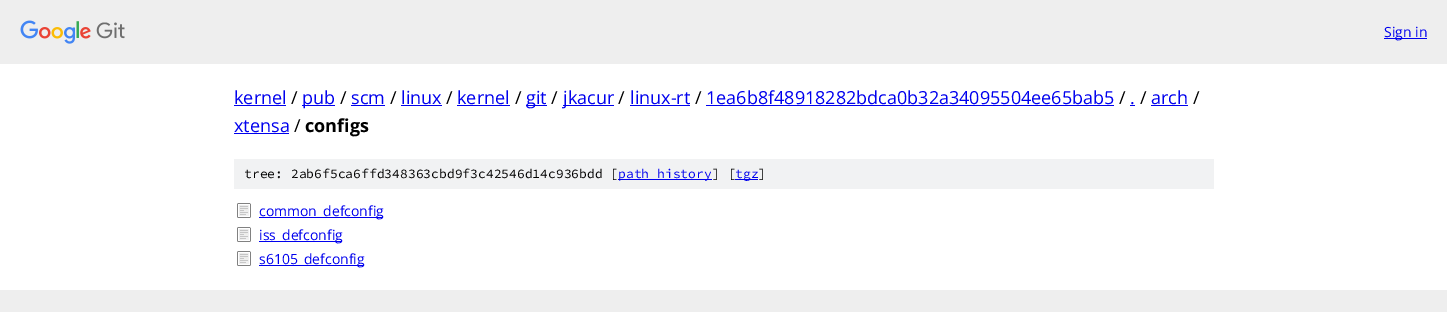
%!PS
<< /PageSize [1447 312] >> setpagedevice
/co { dup -16 bitshift 255 div exch dup -8 bitshift 255 and 255 div exch 255 and 255 div setrgbcolor } def
/fn { [ exch dup neg 0 0 3 -1 roll 0 0 ] selectfont } def
/tx { co fn moveto show } def
/bx { co rectfill } def
/im { 5 dict begin { /h /w /y /x /name } { exch def } forall
  gsave x y translate w h scale
  w h 8 [w 0 0 h 0 0] name (r) file false 3 colorimage grestore end } def
0 312 translate 1 -1 scale
4 setmiterlimit
0 0 1447 312 16#FFFFFF bx
0 0 1447 64 16#EEEEEE bx
(media/1.raw) 20 20 105 24 im
1384 38 43 1 16#0000EE bx
234 105 52 1 16#0000EE bx
302 105 33 1 16#0000EE bx
351 105 34 1 16#0000EE bx
401 105 41 1 16#0000EE bx
457 105 53 1 16#0000EE bx
526 105 21 1 16#0000EE bx
563 105 51 1 16#0000EE bx
630 105 60 1 16#0000EE bx
706 105 408 1 16#0000EE bx
1130 105 5 1 16#0000EE bx
1151 105 37 1 16#0000EE bx
234 133 55 1 16#0000EE bx
234 159 980 30 16#F1F2F3 bx
618 179 94 1 16#0000EE bx
735 179 23 1 16#0000EE bx
(media/2.raw) 237 203 14 15 im
259 217 124 1 16#0000EE bx
(media/2.raw) 237 227 14 15 im
259 241 83 1 16#0000EE bx
(media/2.raw) 237 251 14 15 im
259 265 105 1 16#0000EE bx
0 290 1447 22 16#EEEEEE bx
(Sign in) 1384 37 /OpenSans-Regular 14 16#0000EE tx
(kernel) 234 104 /OpenSans-Regular 18 16#0000EE tx
(/) 291 104 /OpenSans-Regular 18 16#000000 tx
(pub) 302 104 /OpenSans-Regular 18 16#0000EE tx
(/) 340 104 /OpenSans-Regular 18 16#000000 tx
(scm) 351 104 /OpenSans-Regular 18 16#0000EE tx
(/) 390 104 /OpenSans-Regular 18 16#000000 tx
(linux) 401 104 /OpenSans-Regular 18 16#0000EE tx
(/) 446 104 /OpenSans-Regular 18 16#000000 tx
(kernel) 457 104 /OpenSans-Regular 18 16#0000EE tx
(/) 515 104 /OpenSans-Regular 18 16#000000 tx
(git) 526 104 /OpenSans-Regular 18 16#0000EE tx
(/) 551 104 /OpenSans-Regular 18 16#000000 tx
(jkacur) 563 104 /OpenSans-Regular 18 16#0000EE tx
(/) 618 104 /OpenSans-Regular 18 16#000000 tx
(linux-rt) 630 104 /OpenSans-Regular 18 16#0000EE tx
(/) 695 104 /OpenSans-Regular 18 16#000000 tx
(1ea6b8f48918282bdca0b32a34095504ee65bab5) 706 104 /OpenSans-Regular 18 16#0000EE tx
(/) 1119 104 /OpenSans-Regular 18 16#000000 tx
(.) 1130 104 /OpenSans-Regular 18 16#0000EE tx
(/) 1140 104 /OpenSans-Regular 18 16#000000 tx
(arch) 1151 104 /OpenSans-Regular 18 16#0000EE tx
(/) 1193 104 /OpenSans-Regular 18 16#000000 tx
(xtensa) 234 132 /OpenSans-Regular 18 16#0000EE tx
(/) 294 132 /OpenSans-Regular 18 16#000000 tx
(configs) 305 132 /OpenSans-Bold 18 16#000000 tx
(tree: 2ab6f5ca6ffd348363cbd9f3c42546d14c936bdd [) 244 178 /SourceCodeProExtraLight-ExtraLight 13 16#000000 tx
(path history) 618 178 /SourceCodeProExtraLight-ExtraLight 13 16#0000EE tx
(] [) 712 178 /SourceCodeProExtraLight-ExtraLight 13 16#000000 tx
(tgz) 735 178 /SourceCodeProExtraLight-ExtraLight 13 16#0000EE tx
(]) 758 178 /SourceCodeProExtraLight-ExtraLight 13 16#000000 tx
(common_defconfig) 259 216 /OpenSans-Regular 14 16#0000EE tx
(iss_defconfig) 259 240 /OpenSans-Regular 14 16#0000EE tx
(s6105_defconfig) 259 264 /OpenSans-Regular 14 16#0000EE tx
showpage
